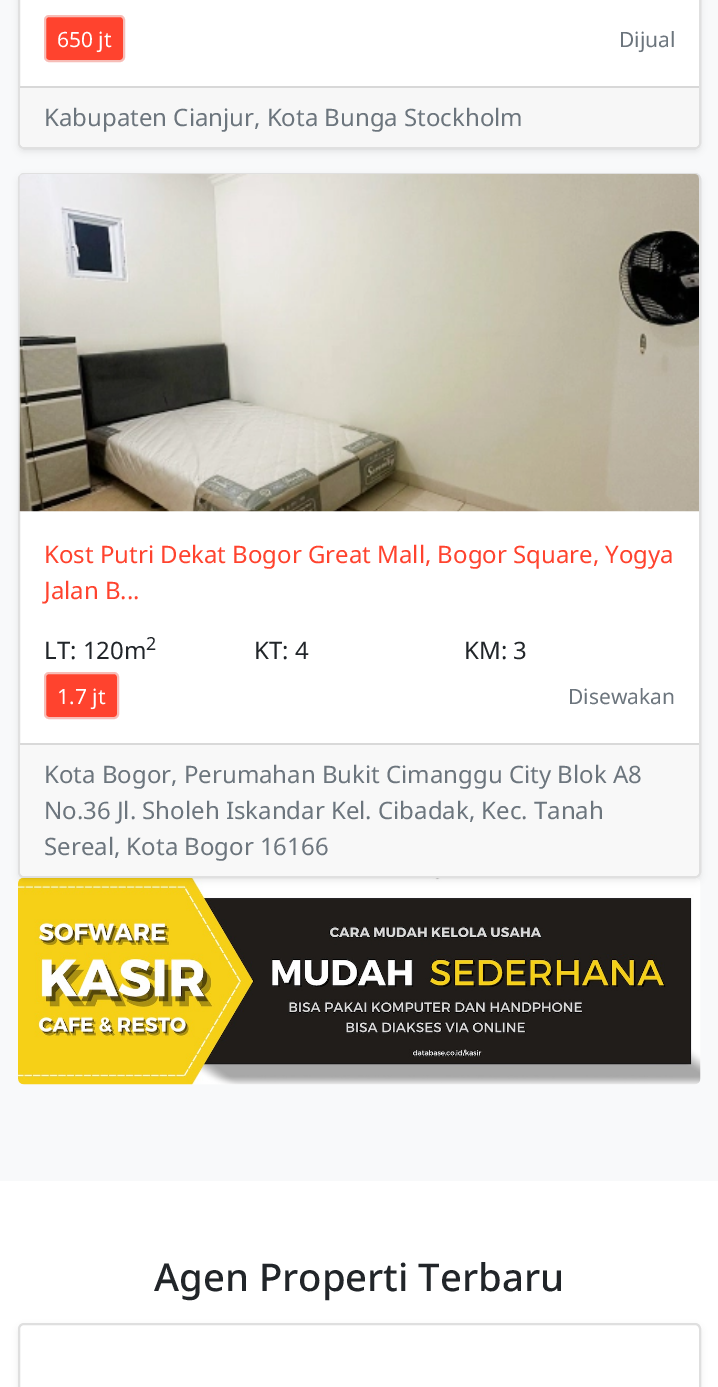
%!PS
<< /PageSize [718 1387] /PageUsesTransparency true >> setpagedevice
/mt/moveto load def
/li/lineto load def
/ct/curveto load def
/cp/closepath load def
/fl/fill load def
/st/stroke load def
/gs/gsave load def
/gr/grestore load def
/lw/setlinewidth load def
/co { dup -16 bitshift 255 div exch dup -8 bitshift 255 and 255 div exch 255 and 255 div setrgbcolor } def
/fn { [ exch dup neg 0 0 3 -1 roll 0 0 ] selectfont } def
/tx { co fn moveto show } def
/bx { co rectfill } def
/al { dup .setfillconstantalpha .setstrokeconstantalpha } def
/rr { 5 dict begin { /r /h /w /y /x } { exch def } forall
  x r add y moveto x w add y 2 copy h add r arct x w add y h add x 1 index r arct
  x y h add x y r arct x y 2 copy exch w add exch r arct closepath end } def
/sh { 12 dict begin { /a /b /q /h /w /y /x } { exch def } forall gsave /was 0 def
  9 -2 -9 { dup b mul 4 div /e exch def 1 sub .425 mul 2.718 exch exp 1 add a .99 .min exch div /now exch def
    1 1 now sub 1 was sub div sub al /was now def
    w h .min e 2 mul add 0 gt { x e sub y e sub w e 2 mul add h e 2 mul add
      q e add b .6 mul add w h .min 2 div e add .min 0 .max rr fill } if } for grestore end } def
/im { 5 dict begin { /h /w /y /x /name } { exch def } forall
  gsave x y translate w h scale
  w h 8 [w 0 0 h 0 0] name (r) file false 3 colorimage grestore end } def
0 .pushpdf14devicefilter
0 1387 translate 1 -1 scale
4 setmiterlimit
0 0 718 1387 16#FFFFFF bx
0 0 718 1181 16#F8F9FA bx
16#000000 co
18 -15 683 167 6 3 .07 sh
16#FFFFFF co
18 -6 683 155 6 rr fl
0.12 al
16#000000 co
2 lw
19 -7 681 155 5 rr st
1 al
16#FF432E co
45 16 79 45 4 rr gs fl gr
16#F7BDB7 co
st
16#F7F7F7 co
20 86 mt 699 86 li 699 142 li 699 145 697 147 694 147 ct 25 147 li 22 147 20 145 20 142 ct cp fl
20 86 679 2 16#D8D8D8 bx
(media/2.raw) 18 877 683 208 im
16#000000 co
18 176 683 705 6 3 .07 sh
16#FFFFFF co
18 173 683 705 6 rr fl
0.12 al
16#000000 co
19 174 681 703 5 rr st
1 al
(media/1.raw) 19 174 680 338 im
16#FF432E co
45 673 73 45 4 rr gs fl gr
16#F7BDB7 co
st
16#F8F8F8 co
20 743 mt 699 743 li 699 871 li 699 874 697 876 694 876 ct 25 876 li 22 876 20 874 20 871 ct cp fl
20 743 679 2 16#D9D9D9 bx
16#000000 co
18 1326 683 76 6 3 .07 sh
16#FFFFFF co
19 1324 681 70 5 rr gs fl gr
16#DFDFDF co
st
(650 jt) 57 47 /NotoSans-Regular 21 16#FFFFFF tx
(Dijual) 619 47 /NotoSans-Regular 21 16#6C757D tx
(Kabupaten Cianjur, Kota Bunga Stockholm) 44 126 /NotoSans-Regular 24 16#6C757D tx
(Kost Putri Dekat Bogor Great Mall, Bogor Square, Yogya) 44 563 /NotoSans-Regular 24 16#FF432E tx
(Jalan B...) 44 599 /NotoSans-Regular 24 16#FF432E tx
(LT: 120m) 44 659 /NotoSans-Regular 24 16#212529 tx
(2) 146 650 /NotoSans-Regular 18 16#212529 tx
(KT: 4) 254 659 /NotoSans-Regular 24 16#212529 tx
(KM: 3) 464 659 /NotoSans-Regular 24 16#212529 tx
(1.7 jt) 57 704 /NotoSans-Regular 21 16#FFFFFF tx
(Disewakan) 568 704 /NotoSans-Regular 21 16#6C757D tx
(Kota Bogor, Perumahan Bukit Cimanggu City Blok A8) 44 783 /NotoSans-Regular 24 16#6C757D tx
(No.36 Jl. Sholeh Iskandar Kel. Cibadak, Kec. Tanah) 44 819 /NotoSans-Regular 24 16#6C757D tx
(Sereal, Kota Bogor 16166) 44 855 /NotoSans-Regular 24 16#6C757D tx
(Agen Properti Terbaru) 154 1291 /NotoSans-Medium 38.25 16#212529 tx
.poppdf14devicefilter showpage
